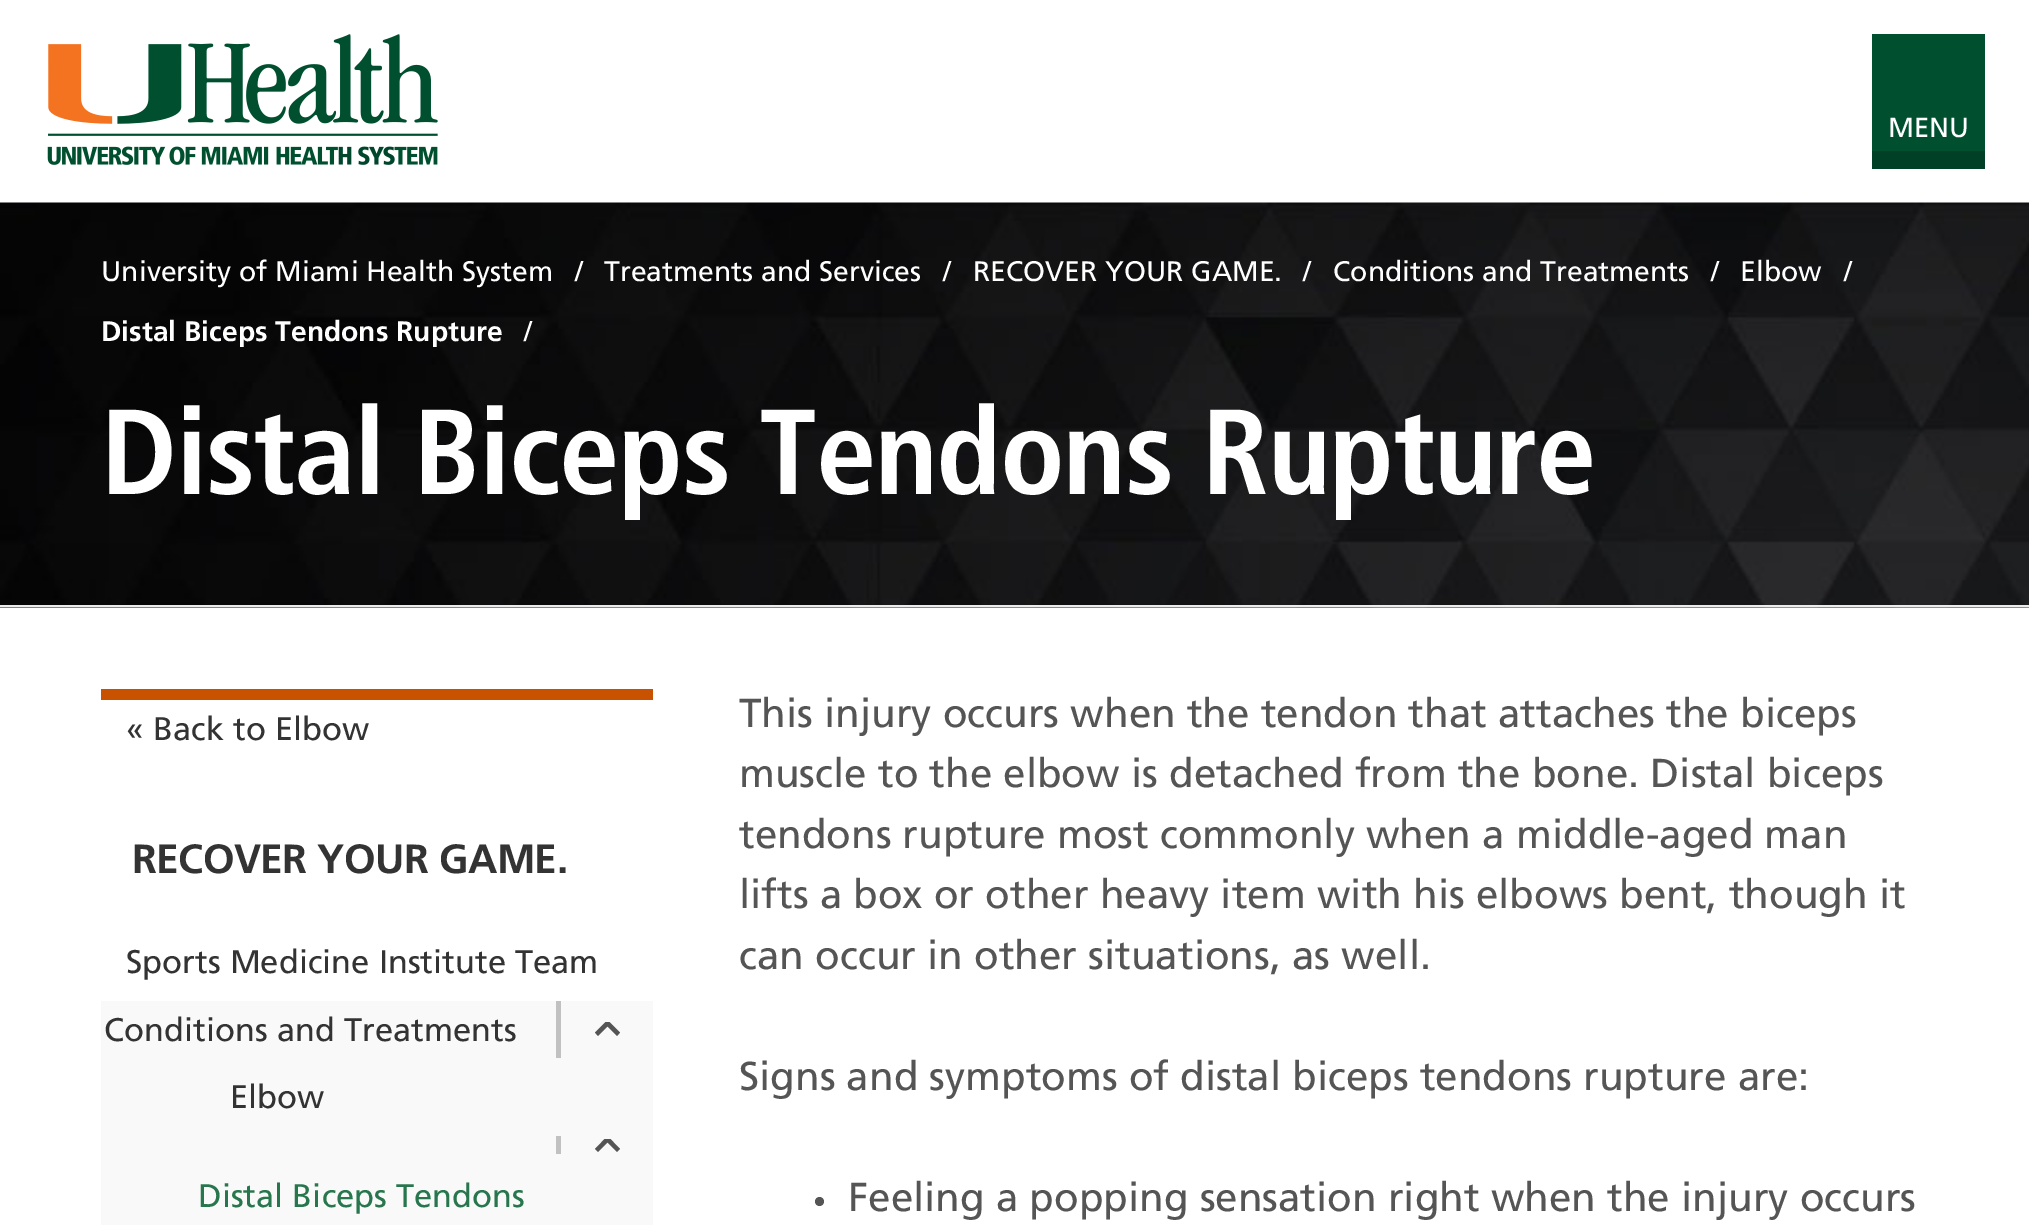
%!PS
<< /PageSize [2029 1225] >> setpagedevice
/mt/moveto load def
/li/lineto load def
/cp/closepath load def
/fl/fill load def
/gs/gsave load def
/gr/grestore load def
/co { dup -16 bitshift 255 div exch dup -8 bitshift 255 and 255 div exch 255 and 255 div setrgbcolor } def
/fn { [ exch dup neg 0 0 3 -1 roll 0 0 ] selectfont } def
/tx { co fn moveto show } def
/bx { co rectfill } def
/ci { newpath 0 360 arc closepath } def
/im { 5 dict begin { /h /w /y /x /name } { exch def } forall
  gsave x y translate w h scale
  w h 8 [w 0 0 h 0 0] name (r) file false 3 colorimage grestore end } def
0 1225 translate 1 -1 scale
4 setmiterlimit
0 0 2029 1225 16#FFFFFF bx
(media/1.raw) 47 34 391 131 im
1872 34 113 117 16#005030 bx
1872 151 113 18 16#004026 bx
(media/2.raw) 0 202 2029 406 im
0 605 2029 2 16#ECECEC bx
101 689 552 11 16#C85200 bx
101 1001 552 224 16#F9F9F9 bx
556 1001 5 57 16#C1C1C1 bx
gs
565 1022 56 15 rectclip
16#555555 co
598 1036 mt 607.5 1026.5 li 617 1036 li 620 1032.5 li 607.5 1020 li 595 1032.5 li cp eofill
gr
556 1136 5 18 16#C1C1C1 bx
gs
565 1139 56 15 rectclip
16#555555 co
598 1152 mt 607.5 1142.5 li 617 1152 li 620 1149 li 607.5 1136 li 595 1149 li cp eofill
gr
16#555555 co
819.5 1201.5 4.5 ci fl
(MENU) 1888 137 /Frutiger-Regular 27.5 16#FFFFFF tx
(University of Miami Health System) 101 281 /Frutiger-Regular 28.25 16#FFFFFF tx
(/) 575 281 /Frutiger-Regular 28.25 16#FFFFFF tx
(Treatments and Services) 604 281 /Frutiger-Regular 28.25 16#FFFFFF tx
(/) 943 281 /Frutiger-Regular 28.25 16#FFFFFF tx
(RECOVER YOUR GAME.) 973 281 /Frutiger-Regular 28.25 16#FFFFFF tx
(/) 1303 281 /Frutiger-Regular 28.25 16#FFFFFF tx
(Conditions and Treatments) 1333 281 /Frutiger-Regular 28.25 16#FFFFFF tx
(/) 1711 281 /Frutiger-Regular 28.25 16#FFFFFF tx
(Elbow) 1740 281 /Frutiger-Regular 28.25 16#FFFFFF tx
(/) 1844 281 /Frutiger-Regular 28.25 16#FFFFFF tx
(Distal Biceps Tendons Rupture) 101 341 /Frutiger-Bold 28.25 16#FFFFFF tx
(/) 524 341 /Frutiger-Regular 28.25 16#FFFFFF tx
/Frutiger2-Bold 121 fn
101 494 mt -1.5 0 (Distal Biceps Tendons Rupture) ashow
(« Back to Elbow) 126 740 /Frutiger-Regular 32.7 16#333333 tx
/Frutiger-Bold 40.75 fn
132 873 mt -.6 0 (RECOVER YOUR GAME.) ashow
(Sports Medicine Institute Team) 126 973 /Frutiger-Regular 32.7 16#333333 tx
(Conditions and Treatments) 104 1041 /Frutiger-Regular 32.7 16#333333 tx
(Elbow) 230 1108 /Frutiger-Regular 32.7 16#333333 tx
(Distal Biceps Tendons) 198 1207 /Frutiger-Regular 32.7 16#28764D tx
(This injury occurs when the tendon that attaches the biceps) 739 727 /Frutiger-Regular 40.3 16#555555 tx
(muscle to the elbow is detached from the bone. Distal biceps) 739 787 /Frutiger-Regular 40.3 16#555555 tx
(tendons rupture most commonly when a middle-aged man) 739 848 /Frutiger-Regular 40.3 16#555555 tx
(lifts a box or other heavy item with his elbows bent, though it) 739 908 /Frutiger-Regular 40.3 16#555555 tx
(can occur in other situations, as well.) 739 969 /Frutiger-Regular 40.3 16#555555 tx
(Signs and symptoms of distal biceps tendons rupture are:) 739 1090 /Frutiger-Regular 40.3 16#555555 tx
(Feeling a popping sensation right when the injury occurs) 848 1211 /Frutiger-Regular 40.3 16#555555 tx
showpage
